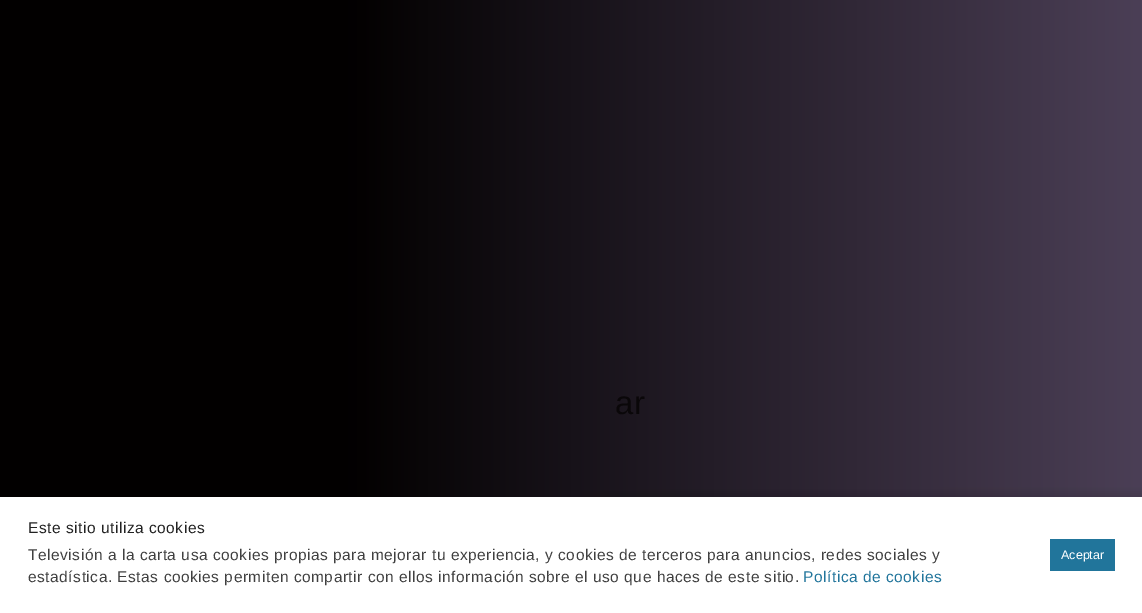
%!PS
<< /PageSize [1142 613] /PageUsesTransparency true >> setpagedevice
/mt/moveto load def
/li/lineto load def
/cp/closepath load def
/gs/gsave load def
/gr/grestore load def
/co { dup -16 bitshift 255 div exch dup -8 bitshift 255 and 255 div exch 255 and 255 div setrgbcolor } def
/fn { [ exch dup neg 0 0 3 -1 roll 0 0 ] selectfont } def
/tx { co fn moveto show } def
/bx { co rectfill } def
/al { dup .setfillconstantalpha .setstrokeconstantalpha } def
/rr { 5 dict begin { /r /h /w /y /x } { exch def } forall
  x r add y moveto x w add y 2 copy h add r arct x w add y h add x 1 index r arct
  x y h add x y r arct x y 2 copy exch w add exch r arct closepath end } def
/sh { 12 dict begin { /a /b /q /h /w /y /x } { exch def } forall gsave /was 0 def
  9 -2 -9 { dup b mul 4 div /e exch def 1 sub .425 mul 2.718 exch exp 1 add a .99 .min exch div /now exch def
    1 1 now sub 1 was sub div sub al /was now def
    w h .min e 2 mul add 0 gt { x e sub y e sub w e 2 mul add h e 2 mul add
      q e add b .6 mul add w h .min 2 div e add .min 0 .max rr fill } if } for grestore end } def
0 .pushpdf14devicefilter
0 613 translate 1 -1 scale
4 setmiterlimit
0 0 1142 613 16#FFFFFF bx
gs 0 0 mt 1142 0 li 1142 497 li 0 497 li cp clip newpath
<< /ShadingType 2 /ColorSpace /DeviceRGB /Coords [0 307 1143 307] /Extend [true true] /Function << /FunctionType 3 /Domain [0 1] /Functions [<< /FunctionType 2 /Domain [0 1] /C0 [.008 0 0] /C1 [.008 0 0] /N 1 >> << /FunctionType 2 /Domain [0 1] /C0 [.008 0 0] /C1 [.294 .247 .337] /N 1 >>] /Bounds [.3] /Encode [0 1 0 1] >> >> shfill gr
16#000000 co
0 492 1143 117 0 4.5 .1 sh
0 497 1142 116 16#FFFFFF bx
1050 539 65 32 16#21759B bx
/LiberationSans-Regular 33 fn
16#0A0709 co
615 414 mt 1 0 (ar) ashow
/LiberationSans-Regular 15.47 fn
16#222222 co
28 533 mt .53 0 (Este sitio utiliza cookies) ashow
16#404040 co
28 560 mt .53 0 (Televisión a la carta usa cookies propias para mejorar tu experiencia, y cookies de terceros para anuncios, redes sociales y) ashow
28 582 mt .53 0 (estadística. Estas cookies permiten compartir con ellos información sobre el uso que haces de este sitio.) ashow
16#21759B co
803 582 mt .53 0 (Política de cookies) ashow
(Aceptar) 1061 559 /LiberationSans-Regular 12.5 16#FFFFFF tx
.poppdf14devicefilter showpage
